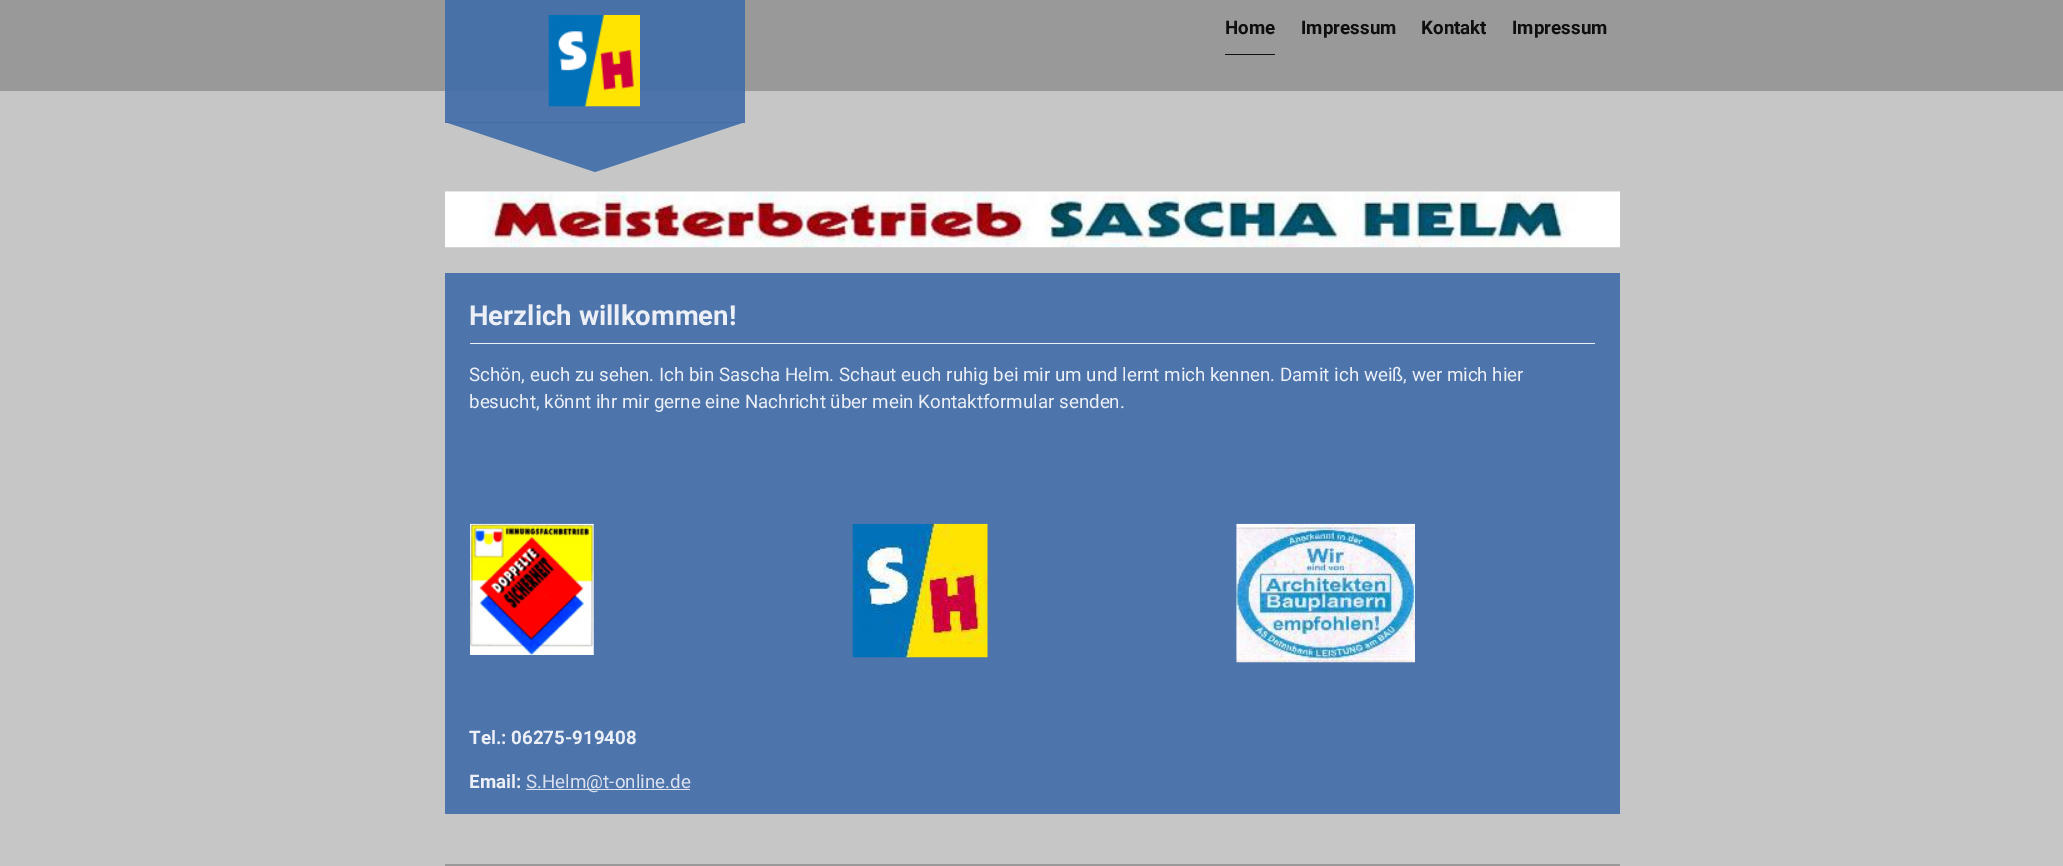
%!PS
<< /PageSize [2063 866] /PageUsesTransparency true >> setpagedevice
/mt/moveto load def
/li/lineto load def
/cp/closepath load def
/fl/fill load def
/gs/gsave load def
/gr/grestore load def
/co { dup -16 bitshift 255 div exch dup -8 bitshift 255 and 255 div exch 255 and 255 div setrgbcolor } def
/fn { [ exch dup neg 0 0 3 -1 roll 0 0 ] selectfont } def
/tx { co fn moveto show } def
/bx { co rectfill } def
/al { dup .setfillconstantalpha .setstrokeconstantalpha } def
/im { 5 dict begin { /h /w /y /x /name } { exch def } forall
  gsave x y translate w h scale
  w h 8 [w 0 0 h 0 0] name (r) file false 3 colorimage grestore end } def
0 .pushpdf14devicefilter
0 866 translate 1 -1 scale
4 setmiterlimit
0 0 2063 866 16#C6C6C6 bx
445 91 300 32 16#4D75AB bx
0 0 2063 91 16#999999 bx
445 0 300 91 16#4871A7 bx
(media/1.raw) 548 15 92 92 im
0.9 al
16#3F6CA8 co
445 122 mt 745 122 li 595 172 li cp fl
1 al
1225 54 50 1 16#0F0F0F bx
(media/2.raw) 445 191 1175 57 im
445 273 1175 541 16#4D75AB bx
470 343 1125 1 16#ECF0F6 bx
(media/3.raw) 470 523 124 132 im
(media/4.raw) 852 523 136 135 im
(media/5.raw) 1236 523 179 140 im
526 789 164 1 16#DCE1F0 bx
445 864 1175 2 16#999999 bx
(Home) 1225 34 /Roboto-Bold 18.75 16#0F0F0F tx
(Impressum) 1301 34 /Roboto-Bold 18.75 16#0F0F0F tx
gs
1421 0 65 55 rectclip
(Kontakt) 1421 34 /Roboto-Bold 18.75 16#0F0F0F tx
gr
(Impressum) 1512 34 /Roboto-Bold 18.75 16#0F0F0F tx
(Herzlich willkommen!) 469 325 /Roboto-Bold 27.5 16#ECF0F6 tx
(Schön, euch zu sehen. Ich bin Sascha Helm. Schaut euch ruhig bei mir um und lernt mich kennen. Damit ich weiß, wer mich hier) 469 381 /Roboto-Regular 18.75 16#ECF0F6 tx
(besucht, könnt ihr mir gerne eine Nachricht über mein Kontaktformular senden.) 469 408 /Roboto-Regular 18.75 16#ECF0F6 tx
(Tel.: 06275-919408) 469 744 /Roboto-Bold 18.75 16#ECF0F6 tx
(Email:) 469 788 /Roboto-Bold 18.75 16#ECF0F6 tx
(S.Helm@t-online.de) 526 788 /Roboto-Regular 18.75 16#DCE1F0 tx
.poppdf14devicefilter showpage
